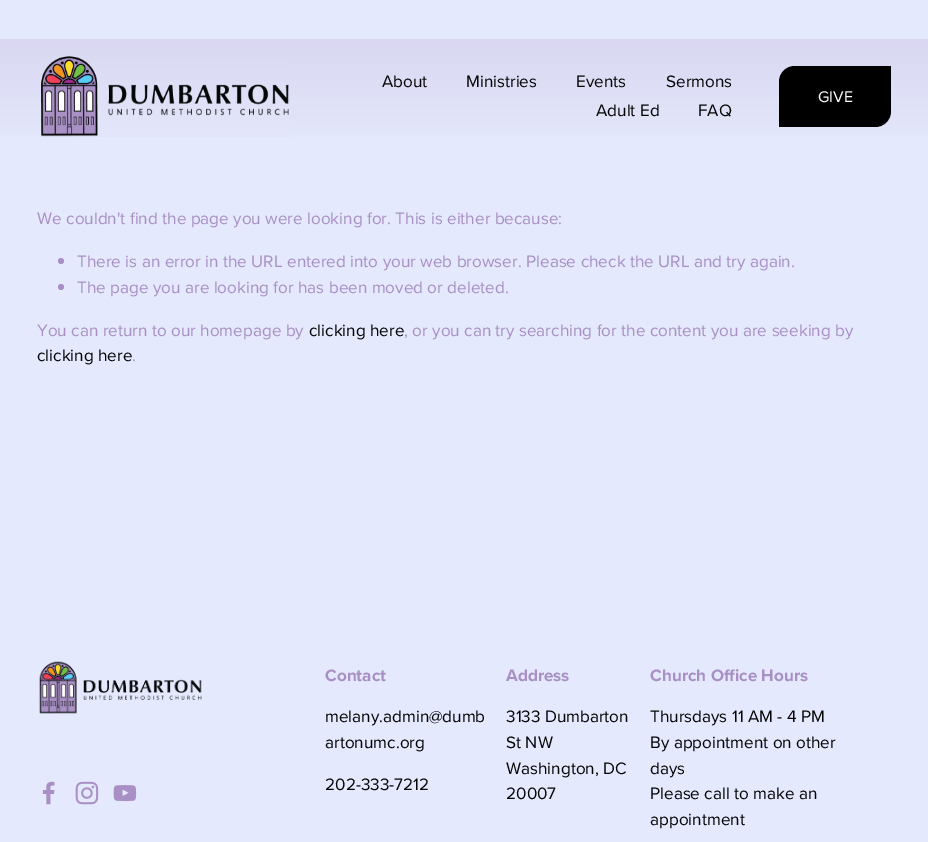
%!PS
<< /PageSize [928 842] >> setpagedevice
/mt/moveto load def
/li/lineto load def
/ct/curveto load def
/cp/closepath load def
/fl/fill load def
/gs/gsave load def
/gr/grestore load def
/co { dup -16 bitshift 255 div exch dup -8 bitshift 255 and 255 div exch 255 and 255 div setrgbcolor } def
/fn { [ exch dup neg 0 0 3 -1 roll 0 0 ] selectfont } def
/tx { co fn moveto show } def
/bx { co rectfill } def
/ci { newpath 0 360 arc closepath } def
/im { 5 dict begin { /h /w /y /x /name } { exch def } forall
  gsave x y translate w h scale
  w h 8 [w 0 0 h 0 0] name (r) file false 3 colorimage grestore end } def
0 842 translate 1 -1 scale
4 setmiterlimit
0 0 928 842 16#E5E9FD bx
gs 0 39 mt 928 39 li 928 137 li 0 137 li cp clip newpath
<< /ShadingType 2 /ColorSpace /DeviceRGB /Coords [464 39 464 153] /Extend [true true] /Function << /FunctionType 2 /Domain [0 1] /C0 [.851 .843 .945] /C1 [.898 .914 .992] /N 1 >> >> shfill gr
(media/1.raw) 41 56 248 81 im
16#000000 co
795 66 mt 891 66 li 891 111 li 891 120 884 127 875 127 ct 779 127 li 779 82 li 779 73 786 66 795 66 ct cp fl
16#A990C4 co
61 261 3 ci fl
61 287 3 ci fl
(media/2.raw) 39 661 163 53 im
(media/3.raw) 42 781 13 24 im
(media/4.raw) 75 781 24 24 im
(media/5.raw) 113 785 24 17 im
(About) 382 87 /ProximaNova-Regular 17.1 16#050505 tx
(Ministries) 466 87 /ProximaNova-Regular 17.1 16#050505 tx
(Events) 576 87 /ProximaNova-Regular 17.1 16#050505 tx
(Sermons) 666 87 /ProximaNova-Regular 17.1 16#050505 tx
(Adult Ed) 596 116 /ProximaNova-Regular 17.1 16#050505 tx
(FAQ) 698 116 /ProximaNova-Regular 17.1 16#050505 tx
(GIVE) 818 102 /ProximaNova-Regular 16 16#FFFFFF tx
(We couldn't find the page you were looking for. This is either because:) 37 224 /ProximaNova-Regular 17.1 16#A990C4 tx
(There is an error in the URL entered into your web browser. Please check the URL and try again.) 77 267 /ProximaNova-Regular 17.1 16#A990C4 tx
(The page you are looking for has been moved or deleted.) 77 293 /ProximaNova-Regular 17.1 16#A990C4 tx
(You can return to our homepage by) 37 336 /ProximaNova-Regular 17.1 16#A990C4 tx
(clicking here) 309 336 /ProximaNova-Regular 17.1 16#050505 tx
(, or you can try searching for the content you are seeking by) 404 336 /ProximaNova-Regular 17.1 16#A990C4 tx
(clicking here) 37 361 /ProximaNova-Regular 17.1 16#050505 tx
(.) 132 361 /ProximaNova-Regular 17.1 16#A990C4 tx
(Contact) 325 681 /ProximaNova-Bold 17.1 16#A990C4 tx
(melany.admin@dumb) 325 722 /ProximaNova-Regular 17.1 16#050505 tx
(artonumc.org) 325 748 /ProximaNova-Regular 17.1 16#050505 tx
(202-333-7212) 325 790 /ProximaNova-Regular 17.1 16#050505 tx
(Address) 506 681 /ProximaNova-Bold 17.1 16#A990C4 tx
(3133 Dumbarton) 506 722 /ProximaNova-Regular 17.1 16#050505 tx
(St NW) 506 748 /ProximaNova-Regular 17.1 16#050505 tx
(Washington, DC) 506 774 /ProximaNova-Regular 17.1 16#050505 tx
(20007) 506 799 /ProximaNova-Regular 17.1 16#050505 tx
(Church Office Hours) 650 681 /ProximaNova-Bold 17.1 16#A990C4 tx
(Thursdays 11 AM - 4 PM) 650 722 /ProximaNova-Regular 17.1 16#050505 tx
(By appointment on other) 650 748 /ProximaNova-Regular 17.1 16#050505 tx
(days) 650 774 /ProximaNova-Regular 17.1 16#050505 tx
(Please call to make an) 650 799 /ProximaNova-Regular 17.1 16#050505 tx
(appointment) 650 825 /ProximaNova-Regular 17.1 16#050505 tx
showpage
